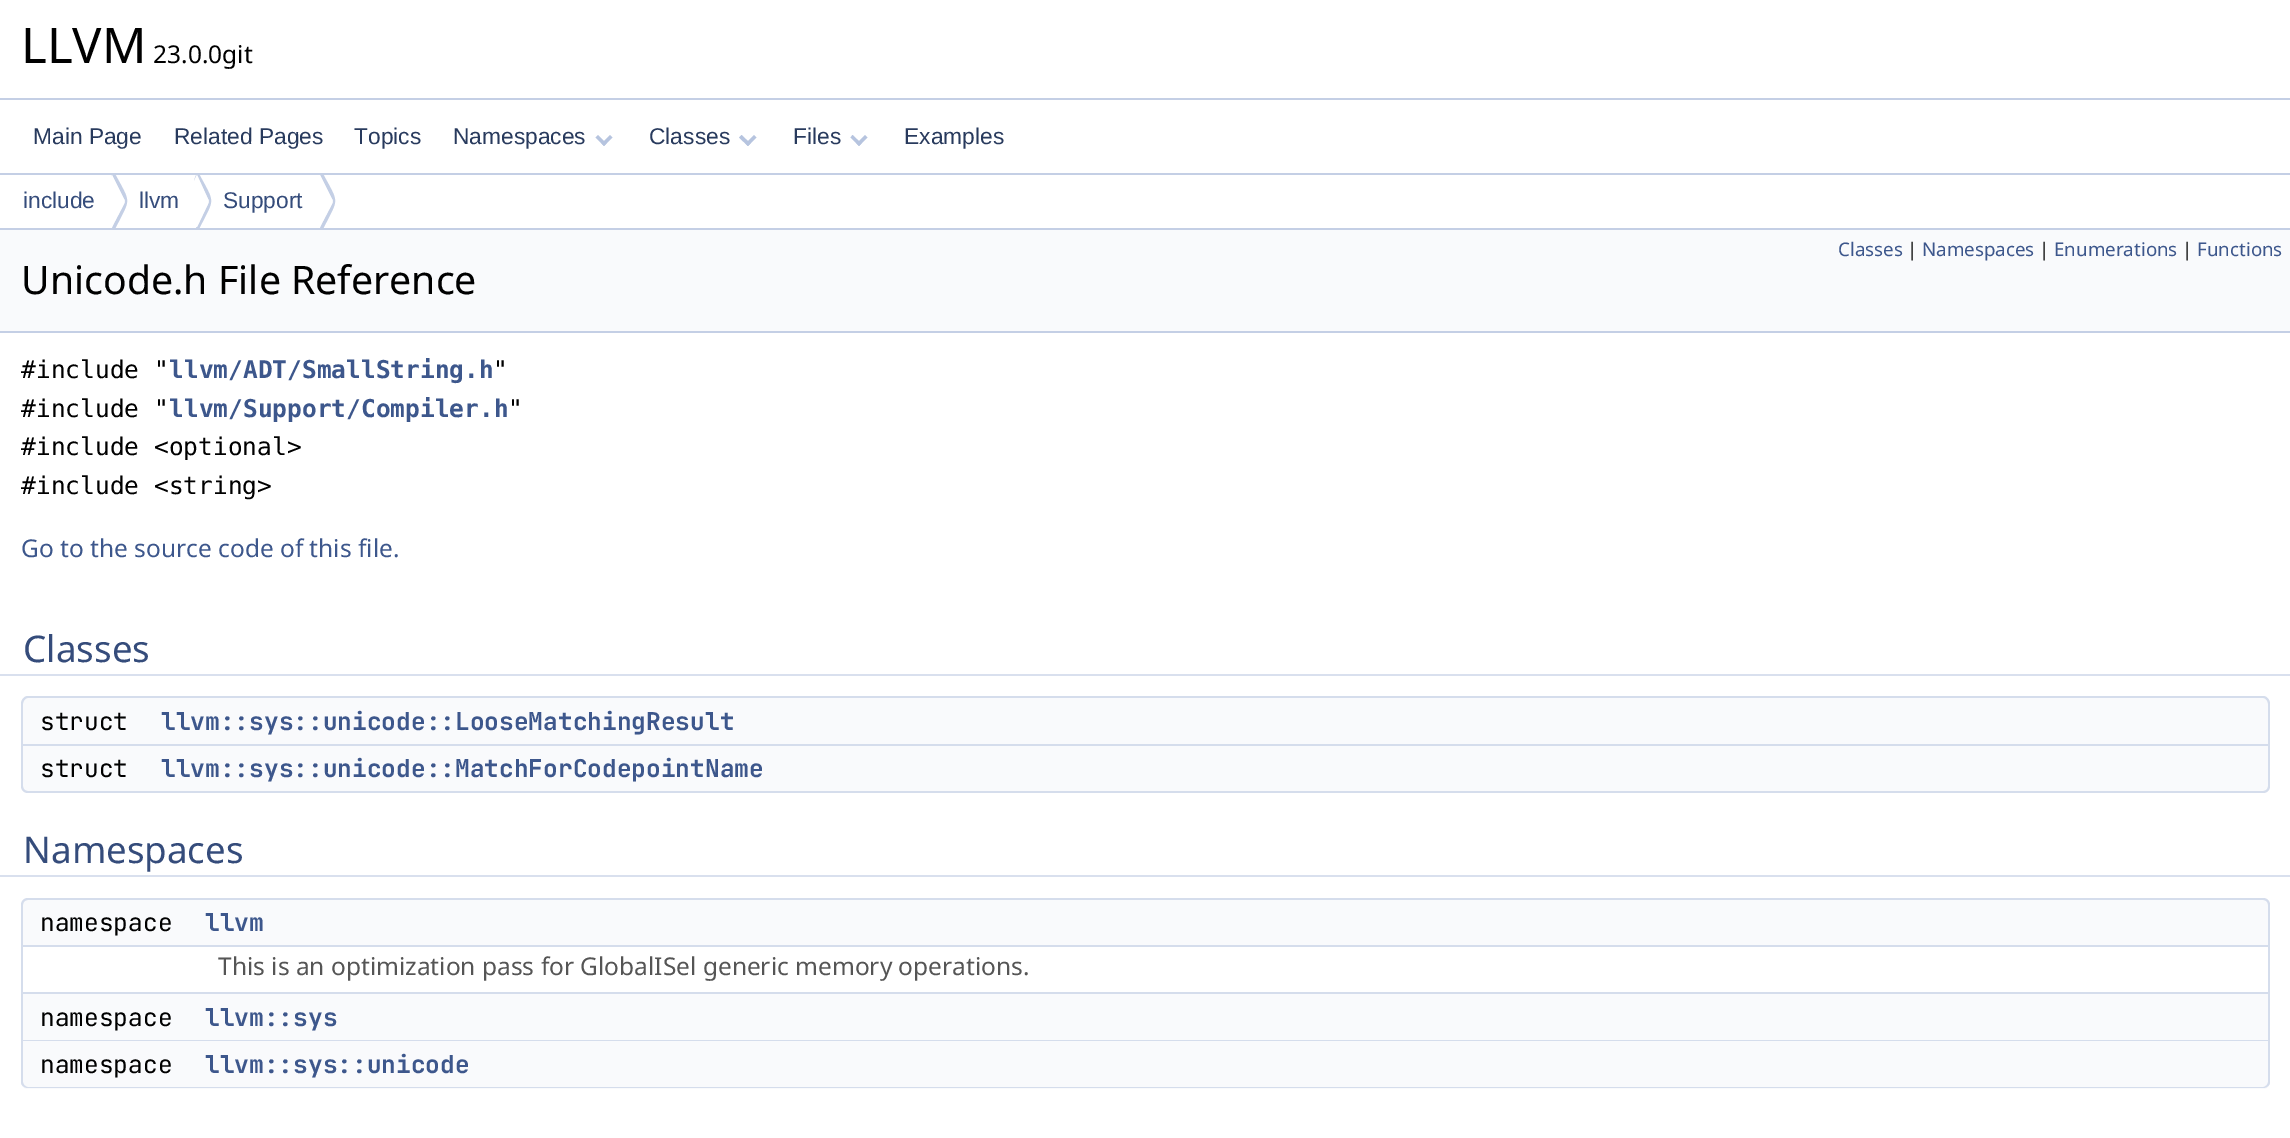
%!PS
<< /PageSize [2290 1138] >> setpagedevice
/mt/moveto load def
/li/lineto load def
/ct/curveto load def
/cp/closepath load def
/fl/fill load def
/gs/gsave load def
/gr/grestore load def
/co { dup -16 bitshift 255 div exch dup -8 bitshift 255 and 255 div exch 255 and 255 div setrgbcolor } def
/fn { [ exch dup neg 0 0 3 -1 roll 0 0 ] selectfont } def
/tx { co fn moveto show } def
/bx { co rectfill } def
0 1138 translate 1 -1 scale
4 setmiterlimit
0 0 2290 1138 16#FFFFFF bx
0 98 2290 2 16#C4CFE5 bx
0 173 2290 2 16#C4CFE5 bx
16#B6C4DF co
610 135 mt 612.5 137.5 li 604 146 li 601.5 143.5 li cp fl
598 135 mt 606.5 143.5 li 604 146 li 595.5 137.5 li cp fl
754 135 mt 756.5 137.5 li 748 146 li 745.5 143.5 li cp fl
741.5 135 mt 750.5 143.5 li 748 146 li 739 137.5 li cp fl
865 135 mt 867.5 137.5 li 859 146 li 856.5 143.5 li cp fl
852.5 135 mt 861.5 143.5 li 859 146 li 850.5 137.5 li cp fl
0 228 2290 2 16#C4CFE5 bx
gs
0 175 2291 53 rectclip
114 172 mt 113 173 112 175 111 177 ct 112 175 li 124 199 li 125 200 125 202 124 204 ct 112 227 li 114 231 li 131 196 132 206 114 172 ct cp fl
gr
16#FFFFFF co
112 175 mt 124 199 li 125 200 125 202 124 204 ct 112 227 li 105 213 105 189 112 175 ct cp fl
gs
0 175 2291 53 rectclip
16#C4CFE5 co
198 172 mt 196 174 195 178 194 181 ct 197 175 li 208 199 li 209 200 209 202 208 204 ct 197 227 li 196 227 li 198 231 li 215 196 216 206 198 172 ct cp fl
gr
197 175 mt 208 199 li 209 200 209 202 208 204 ct 197 227 li 189 213 189 189 197 175 ct cp fl
gs
0 175 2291 53 rectclip
16#C4CFE5 co
322 172 mt 320 175 li 332 199 li 333 200 333 202 332 204 ct 320 227 li 322 231 li 339 196 340 206 322 172 ct cp fl
gr
320 175 mt 332 199 li 333 200 333 202 332 204 ct 320 227 li 313 213 313 189 320 175 ct cp fl
0 230 2290 101 16#F9FAFC bx
0 331 2290 2 16#C4CFE5 bx
16#D9E0EE co
0 616 mt 0 676 li 2245 676 li 2245 674 li 23 674 li 23 616 li cp fl
46 674 mt 46 676 li 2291 676 li 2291 616 li 2268 616 li 2268 674 li cp fl
16#FFFFFF co
0 614 mt 0 674 li 2245 674 li 23 674 li 23 614 li 2245 614 li cp fl
46 614 mt 2268 614 li 2268 674 li 46 674 li 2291 674 li 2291 614 li cp fl
16#F9FAFC co
28 697 mt 159 697 li 159 746 li 21 746 li 21 704 li 21 700 24 697 28 697 ct cp fl
16#D5DDEC co
28 696 mt 159 696 li 159 746 li 21 746 li 21 704 li 21 700 24 696 28 696 ct cp 28 698 mt 159 698 li 159 744 li 23 744 li 23 704 li 23 701 25 698 28 698 ct cp eofill
16#F9FAFC co
159 697 mt 2263 697 li 2267 697 2270 700 2270 704 ct 2270 746 li 159 746 li cp fl
16#D5DDEC co
159 696 mt 2263 696 li 2267 696 2270 700 2270 704 ct 2270 746 li 159 746 li cp 159 698 mt 2263 698 li 2266 698 2268 701 2268 704 ct 2268 744 li 159 744 li cp eofill
16#F9FAFC co
21 746 mt 159 746 li 159 793 li 28 793 li 24 793 21 790 21 786 ct cp fl
16#D5DDEC co
21 746 mt 159 746 li 159 793 li 28 793 li 24 793 21 790 21 786 ct cp 23 746 mt 159 746 li 159 791 li 28 791 li 25 791 23 789 23 786 ct cp eofill
16#F9FAFC co
159 746 mt 2270 746 li 2270 786 li 2270 790 2267 793 2263 793 ct 159 793 li cp fl
16#D5DDEC co
159 746 mt 2270 746 li 2270 786 li 2270 790 2267 793 2263 793 ct 159 793 li cp 159 746 mt 2268 746 li 2268 786 li 2268 789 2266 791 2263 791 ct 159 791 li cp eofill
16#D9E0EE co
0 817 mt 0 877 li 2245 877 li 2245 875 li 23 875 li 23 817 li cp fl
46 875 mt 46 877 li 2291 877 li 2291 817 li 2268 817 li 2268 875 li cp fl
0 817 23 58 16#FFFFFF bx
2268 817 22 58 16#FFFFFF bx
16#F9FAFC co
28 898 mt 203 898 li 203 947 li 21 947 li 21 905 li 21 901 24 898 28 898 ct cp fl
16#D5DDEC co
28 898 mt 203 898 li 203 947 li 21 947 li 21 905 li 21 901 24 898 28 898 ct cp 28 900 mt 203 900 li 203 945 li 23 945 li 23 905 li 23 902 25 900 28 900 ct cp eofill
16#F9FAFC co
203 898 mt 2263 898 li 2267 898 2270 901 2270 905 ct 2270 947 li 203 947 li cp fl
16#D5DDEC co
203 898 mt 2263 898 li 2267 898 2270 901 2270 905 ct 2270 947 li 203 947 li cp 203 900 mt 2263 900 li 2266 900 2268 902 2268 905 ct 2268 945 li 203 945 li cp eofill
21 992 182 2 16#D5DDEC bx
21 947 2 47 16#D5DDEC bx
2268 947 2 94 16#D5DDEC bx
203 992 2067 2 16#D5DDEC bx
23 994 2245 46 16#F9FAFC bx
21 1040 2249 1 16#D5DDEC bx
21 994 2 47 16#D5DDEC bx
16#F9FAFC co
21 1041 mt 203 1041 li 203 1089 li 28 1089 li 24 1089 21 1086 21 1082 ct cp fl
16#D5DDEC co
21 1041 mt 203 1041 li 203 1088 li 28 1088 li 24 1088 21 1085 21 1082 ct cp 23 1041 mt 203 1041 li 203 1087 li 28 1087 li 25 1087 23 1084 23 1082 ct cp eofill
16#F9FAFC co
203 1041 mt 2270 1041 li 2270 1082 li 2270 1086 2267 1089 2263 1089 ct 203 1089 li cp fl
16#D5DDEC co
203 1041 mt 2270 1041 li 2270 1082 li 2270 1085 2267 1088 2263 1088 ct 203 1088 li cp 203 1041 mt 2268 1041 li 2268 1082 li 2268 1084 2266 1087 2263 1087 ct 203 1087 li cp eofill
(LLVM) 21 63 /NotoSans-Regular 49 16#000000 tx
(23.0.0git) 153 63 /NotoSans-Regular 24.5 16#000000 tx
(Main Page) 33 144 /LiberationSans-Regular 22.75 16#283A5D tx
(Related Pages) 174 144 /LiberationSans-Regular 22.75 16#283A5D tx
(Topics) 354 144 /LiberationSans-Regular 22.75 16#283A5D tx
(Namespaces) 453 144 /LiberationSans-Regular 22.75 16#283A5D tx
(Classes) 649 144 /LiberationSans-Regular 22.75 16#283A5D tx
(Files) 793 144 /LiberationSans-Regular 22.75 16#283A5D tx
(Examples) 904 144 /LiberationSans-Regular 22.75 16#283A5D tx
(include) 23 208 /LiberationSans-Regular 22.75 16#354C7B tx
(llvm) 139 208 /LiberationSans-Regular 22.75 16#354C7B tx
(Support) 223 208 /LiberationSans-Regular 22.75 16#354C7B tx
(Classes) 1838 256 /NotoSans-Regular 18.75 16#3D578C tx
(|) 1907 256 /NotoSans-Regular 18.75 16#000000 tx
(Namespaces) 1922 256 /NotoSans-Regular 18.75 16#3D578C tx
(|) 2039 256 /NotoSans-Regular 18.75 16#000000 tx
(Enumerations) 2054 256 /NotoSans-Regular 18.75 16#3D578C tx
(|) 2182 256 /NotoSans-Regular 18.75 16#000000 tx
(Functions) 2197 256 /NotoSans-Regular 18.75 16#3D578C tx
(Unicode.h File Reference) 21 294 /NotoSans-Regular 39.25 16#000000 tx
(#include ") 21 378 /DejaVuSansMono-Regular 24.5 16#000000 tx
(llvm/ADT/SmallString.h) 169 378 /DejaVuSansMono-Bold 24.5 16#3D578C tx
(") 493 378 /DejaVuSansMono-Regular 24.5 16#000000 tx
(#include ") 21 417 /DejaVuSansMono-Regular 24.5 16#000000 tx
(llvm/Support/Compiler.h) 169 417 /DejaVuSansMono-Bold 24.5 16#3D578C tx
(") 508 417 /DejaVuSansMono-Regular 24.5 16#000000 tx
(#include <optional>) 21 455 /DejaVuSansMono-Regular 24.5 16#000000 tx
(#include <string>) 21 494 /DejaVuSansMono-Regular 24.5 16#000000 tx
(Go to the source code of this file.) 21 557 /NotoSans-Regular 24.5 16#3D578C tx
(Classes) 23 662 /NotoSans-Regular 36.75 16#354C7B tx
(struct) 40 730 /JetBrainsMono-Regular 24.5 16#000000 tx
(llvm::sys::unicode::LooseMatchingResult) 161 730 /JetBrainsMono-Bold 24.5 16#3D578C tx
(struct) 40 777 /JetBrainsMono-Regular 24.5 16#000000 tx
(llvm::sys::unicode::MatchForCodepointName) 161 777 /JetBrainsMono-Bold 24.5 16#3D578C tx
(Namespaces) 23 863 /NotoSans-Regular 36.75 16#354C7B tx
(namespace) 40 931 /JetBrainsMono-Regular 24.5 16#000000 tx
(llvm) 205 931 /JetBrainsMono-Bold 24.5 16#3D578C tx
(This is an optimization pass for GlobalISel generic memory operations.) 218 975 /NotoSans-Regular 24.5 16#555555 tx
(namespace) 40 1026 /JetBrainsMono-Regular 24.5 16#000000 tx
(llvm::sys) 205 1026 /JetBrainsMono-Bold 24.5 16#3D578C tx
(namespace) 40 1073 /JetBrainsMono-Regular 24.5 16#000000 tx
(llvm::sys::unicode) 205 1073 /JetBrainsMono-Bold 24.5 16#3D578C tx
showpage
